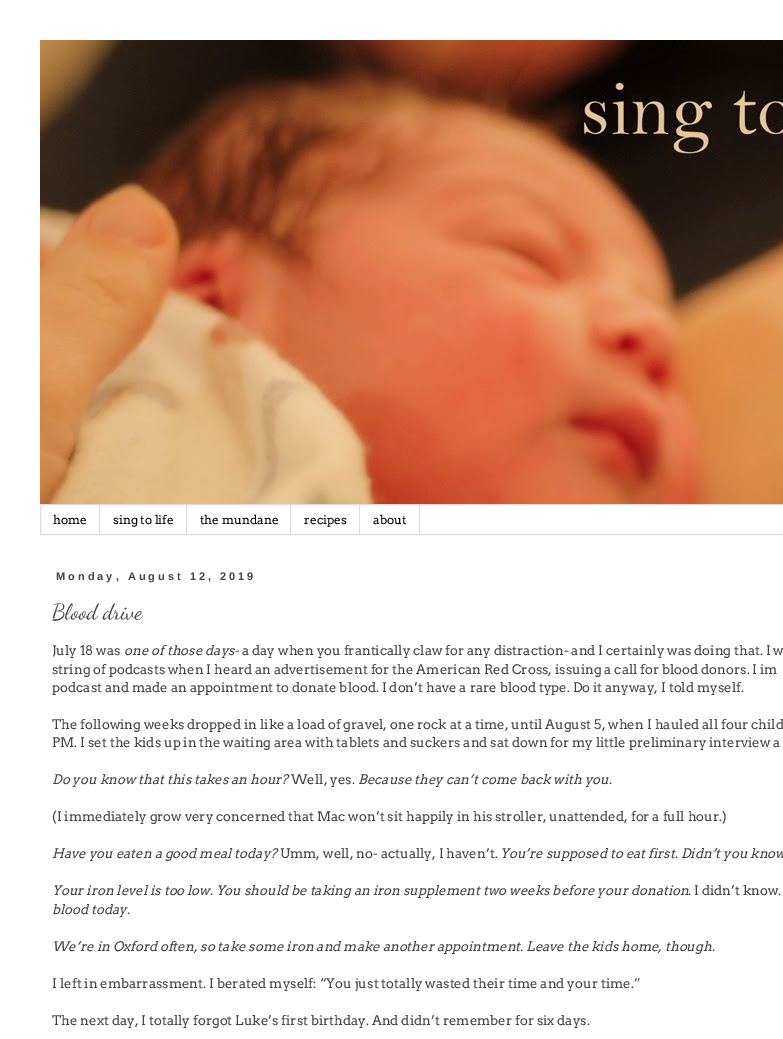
%!PS
<< /PageSize [783 1039] >> setpagedevice
/mt/moveto load def
/co { dup -16 bitshift 255 div exch dup -8 bitshift 255 and 255 div exch 255 and 255 div setrgbcolor } def
/fn { [ exch dup neg 0 0 3 -1 roll 0 0 ] selectfont } def
/tx { co fn moveto show } def
/bx { co rectfill } def
/im { 5 dict begin { /h /w /y /x /name } { exch def } forall
  gsave x y translate w h scale
  w h 8 [w 0 0 h 0 0] name (r) file false 3 colorimage grestore end } def
0 1039 translate 1 -1 scale
4 setmiterlimit
0 0 783 1039 16#FFFFFF bx
(media/1.raw) 40 40 743 464 im
16#DDDDDD co
40.5 504.5 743 30 rectstroke
99 505 1 29 16#DDDDDD bx
186 505 1 29 16#DDDDDD bx
290 505 1 29 16#DDDDDD bx
359 505 1 29 16#DDDDDD bx
419 505 1 29 16#DDDDDD bx
(home) 53 524 /Arvo-Regular 12 16#000000 tx
(sing to life) 113 524 /Arvo-Regular 12 16#000000 tx
(the mundane) 200 524 /Arvo-Regular 12 16#000000 tx
(recipes) 304 524 /Arvo-Regular 12 16#000000 tx
(about) 373 524 /Arvo-Regular 12 16#000000 tx
/LiberationSans-Bold 11 fn
16#444444 co
56 580 mt 3 0 (Monday, August 12, 2019) ashow
(Blood drive) 52 619 /DancingScript-Regular 22 16#444444 tx
(July 18 was) 52 655 /Arvo-Regular 13.2 16#444444 tx
(one of those days-) 124 655 /Arvo-Italic 13.2 16#444444 tx
(a day when you frantically claw for any distraction- and I certainly was doing that. I w) 242 655 /Arvo-Regular 13.2 16#444444 tx
(string of podcasts when I heard an advertisement for the American Red Cross, issuing a call for blood donors. I im) 52 674 /Arvo-Regular 13.2 16#444444 tx
(podcast and made an appointment to donate blood. I don’t have a rare blood type. Do it anyway, I told myself.) 52 692 /Arvo-Regular 13.2 16#444444 tx
(The following weeks dropped in like a load of gravel, one rock at a time, until August 5, when I hauled all four child) 52 729 /Arvo-Regular 13.2 16#444444 tx
(PM. I set the kids up in the waiting area with tablets and suckers and sat down for my little preliminary interview a) 52 747 /Arvo-Regular 13.2 16#444444 tx
(Do you know that this takes an hour?) 52 784 /Arvo-Italic 13.2 16#444444 tx
(Well, yes.) 291 784 /Arvo-Regular 13.2 16#444444 tx
(Because they can’t come back with you.) 358 784 /Arvo-Italic 13.2 16#444444 tx
(\(I immediately grow very concerned that Mac won’t sit happily in his stroller, unattended, for a full hour.\)) 52 821 /Arvo-Regular 13.2 16#444444 tx
(Have you eaten a good meal today?) 52 858 /Arvo-Italic 13.2 16#444444 tx
(Umm, well, no- actually, I haven’t.) 280 858 /Arvo-Regular 13.2 16#444444 tx
(You’re supposed to eat first. Didn’t you know) 500 858 /Arvo-Italic 13.2 16#444444 tx
(Your iron level is too low. You should be taking an iron supplement two weeks before your donation) 52 895 /Arvo-Italic 13.2 16#444444 tx
(. I didn’t know.) 688 895 /Arvo-Regular 13.2 16#444444 tx
(blood today.) 52 914 /Arvo-Italic 13.2 16#444444 tx
(We’re in Oxford often, so take some iron and make another appointment. Leave the kids home, though.) 52 951 /Arvo-Italic 13.2 16#444444 tx
(I left in embarrassment. I berated myself: “You just totally wasted their time and your time.”) 52 988 /Arvo-Regular 13.2 16#444444 tx
(The next day, I totally forgot Luke’s first birthday. And didn’t remember for six days.) 52 1025 /Arvo-Regular 13.2 16#444444 tx
showpage
